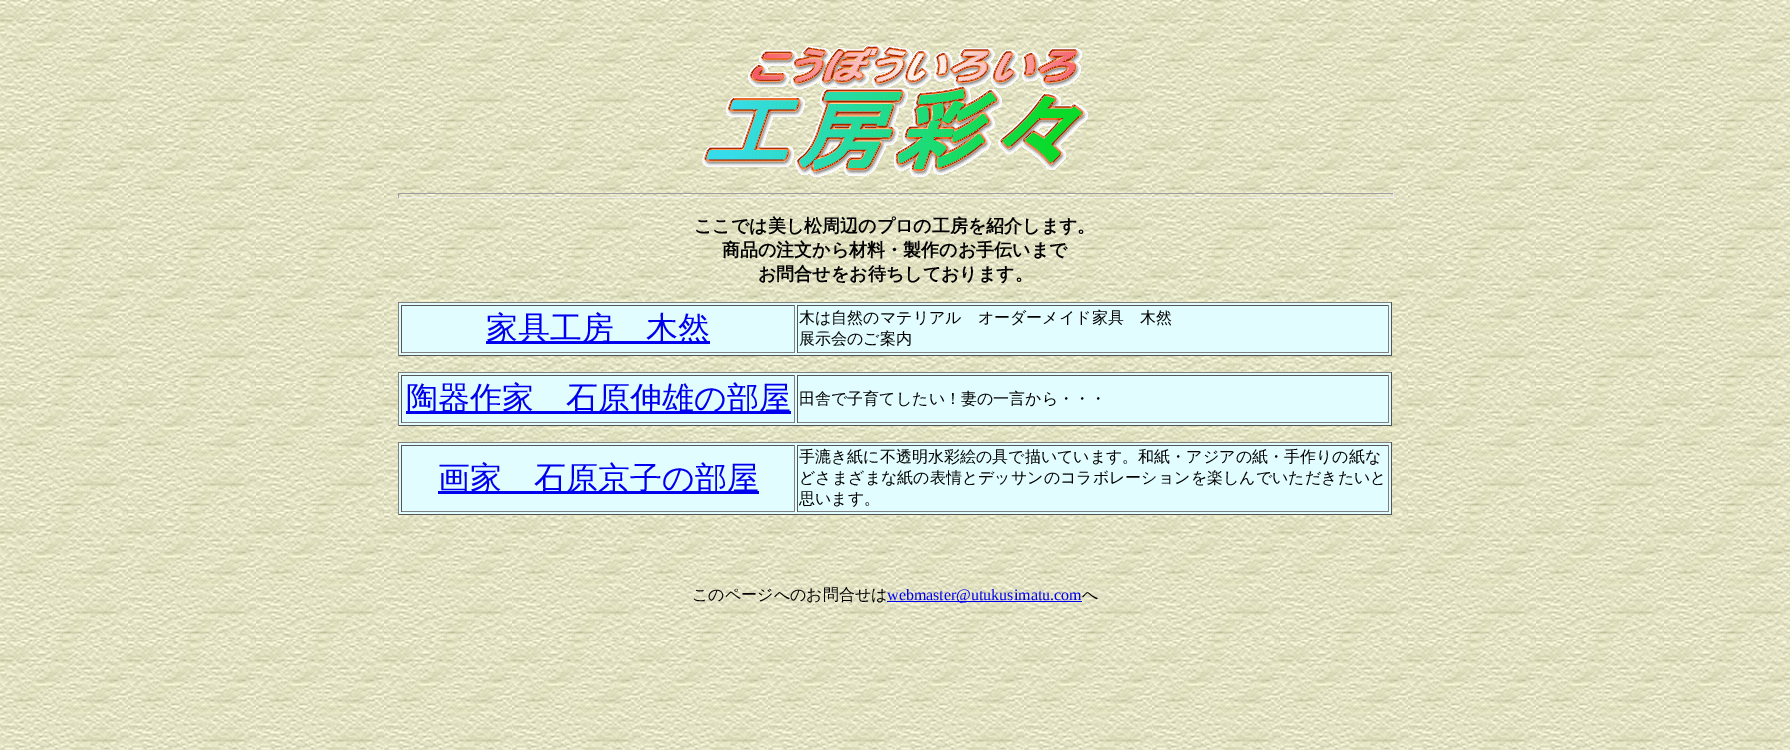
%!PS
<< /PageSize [1790 750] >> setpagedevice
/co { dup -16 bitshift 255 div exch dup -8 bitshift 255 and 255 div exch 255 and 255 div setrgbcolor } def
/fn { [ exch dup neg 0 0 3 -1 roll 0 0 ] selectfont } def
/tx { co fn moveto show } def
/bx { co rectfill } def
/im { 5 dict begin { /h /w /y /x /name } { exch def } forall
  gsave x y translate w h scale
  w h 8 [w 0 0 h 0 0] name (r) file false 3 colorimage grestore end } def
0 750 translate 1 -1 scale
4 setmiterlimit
0 0 1790 750 16#FFFFFF bx
(media/1.raw) 0 0 1790 750 im
(media/2.raw) 702 45 386 132 im
398 193 996 1 16#9F9F9F bx
1393 193 1 5 16#EEEEEE bx
398 197 996 1 16#EEEEEE bx
398 193 1 5 16#9F9F9F bx
399 303 992 52 16#E1FDFF bx
398 302 994 1 16#808080 bx
1391 302 1 54 16#555555 bx
398 355 994 1 16#555555 bx
398 302 1 54 16#808080 bx
401 305 394 1 16#555555 bx
794 305 1 48 16#808080 bx
401 352 394 1 16#808080 bx
401 305 1 48 16#555555 bx
486 341 224 3 16#0000EE bx
797 305 592 1 16#555555 bx
1388 305 1 48 16#808080 bx
797 352 592 1 16#808080 bx
797 305 1 48 16#555555 bx
399 373 992 52 16#E1FDFF bx
398 372 994 1 16#808080 bx
1391 372 1 54 16#555555 bx
398 425 994 1 16#555555 bx
398 372 1 54 16#808080 bx
401 375 394 1 16#555555 bx
794 375 1 48 16#808080 bx
401 422 394 1 16#808080 bx
401 375 1 48 16#555555 bx
406 411 385 3 16#0000EE bx
797 375 592 1 16#555555 bx
1388 375 1 48 16#808080 bx
797 422 592 1 16#808080 bx
797 375 1 48 16#555555 bx
399 443 992 71 16#E1FDFF bx
398 442 994 1 16#808080 bx
1391 442 1 73 16#555555 bx
398 514 994 1 16#555555 bx
398 442 1 73 16#808080 bx
401 445 394 1 16#555555 bx
794 445 1 67 16#808080 bx
401 511 394 1 16#808080 bx
401 445 1 67 16#555555 bx
438 491 321 3 16#0000EE bx
797 445 592 1 16#555555 bx
1388 445 1 67 16#808080 bx
797 511 592 1 16#808080 bx
797 445 1 67 16#555555 bx
887 601 195 1 16#0000EE bx
(ここでは美し松周辺のプロの工房を紹介します。) 694 232 /WenQuanYiZenHei-Bold 18 16#000000 tx
(商品の注文から材料・製作のお手伝いまで) 722 256 /WenQuanYiZenHei-Bold 18 16#000000 tx
(お問合せをお待ちしております。) 758 280 /WenQuanYiZenHei-Bold 18 16#000000 tx
(家具工房　木然) 486 339 /WenQuanYiZenHei-Medium 32 16#0000EE tx
(木は自然のマテリアル　オーダーメイド家具　木然) 799 323 /WenQuanYiZenHei-Medium 16 16#000000 tx
(展示会のご案内) 799 344 /WenQuanYiZenHei-Medium 16 16#000000 tx
(陶器作家　石原伸雄の部屋) 406 409 /WenQuanYiZenHei-Medium 32 16#0000EE tx
(田舎で子育てしたい！妻の一言から・・・) 799 404 /WenQuanYiZenHei-Medium 16 16#000000 tx
(画家　石原京子の部屋) 438 489 /WenQuanYiZenHei-Medium 32 16#0000EE tx
(手漉き紙に不透明水彩絵の具で描いています。和紙・アジアの紙・手作りの紙な) 799 462 /WenQuanYiZenHei-Medium 16 16#000000 tx
(どさまざまな紙の表情とデッサンのコラボレーションを楽しんでいただきたいと) 799 483 /WenQuanYiZenHei-Medium 16 16#000000 tx
(思います。) 799 504 /WenQuanYiZenHei-Medium 16 16#000000 tx
(このページへのお問合せは) 692 600 /WenQuanYiZenHei-Medium 16 16#000000 tx
(webmaster@utukusimatu.com) 887 600 /LiberationSerif-Regular 16 16#0000EE tx
(へ) 1082 600 /WenQuanYiZenHei-Medium 16 16#000000 tx
showpage
